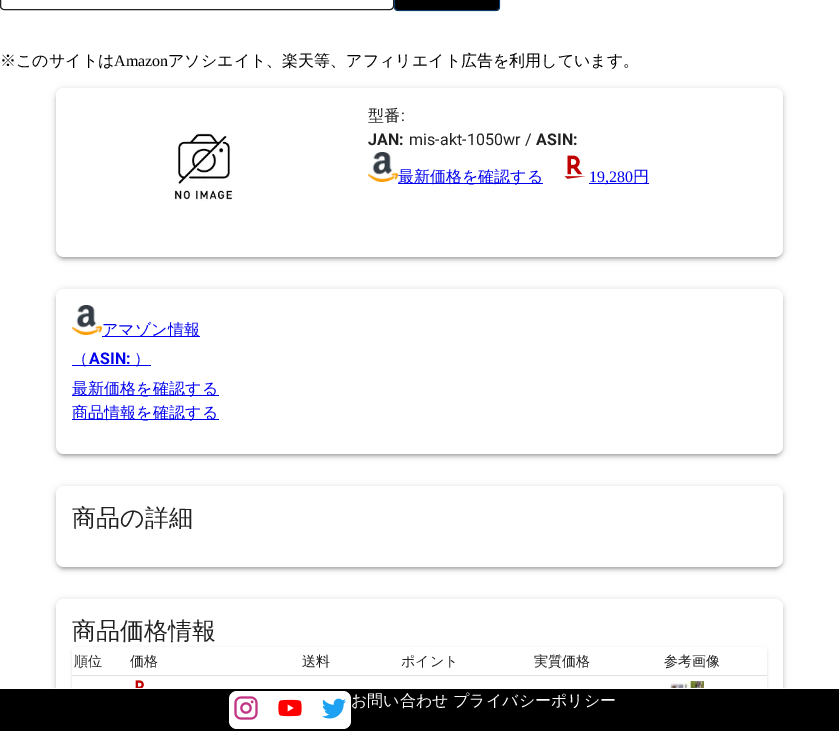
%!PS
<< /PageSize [839 731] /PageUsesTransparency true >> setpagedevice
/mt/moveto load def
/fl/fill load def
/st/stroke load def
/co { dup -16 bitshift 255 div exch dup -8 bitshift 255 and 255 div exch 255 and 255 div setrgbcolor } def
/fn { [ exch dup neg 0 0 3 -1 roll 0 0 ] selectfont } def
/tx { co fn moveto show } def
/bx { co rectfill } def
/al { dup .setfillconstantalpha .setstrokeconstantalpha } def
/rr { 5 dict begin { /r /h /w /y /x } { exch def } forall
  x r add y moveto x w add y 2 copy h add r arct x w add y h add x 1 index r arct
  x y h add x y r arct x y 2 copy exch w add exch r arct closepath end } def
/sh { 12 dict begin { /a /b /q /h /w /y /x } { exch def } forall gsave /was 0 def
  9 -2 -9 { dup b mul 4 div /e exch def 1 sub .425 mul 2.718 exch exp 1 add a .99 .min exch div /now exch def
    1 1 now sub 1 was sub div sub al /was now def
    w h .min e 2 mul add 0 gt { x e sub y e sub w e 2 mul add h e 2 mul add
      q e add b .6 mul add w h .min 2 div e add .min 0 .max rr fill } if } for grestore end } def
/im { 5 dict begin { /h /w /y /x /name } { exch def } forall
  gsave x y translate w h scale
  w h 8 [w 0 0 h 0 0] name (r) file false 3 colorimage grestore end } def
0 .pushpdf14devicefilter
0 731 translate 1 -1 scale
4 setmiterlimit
0 0 839 731 16#FFFFFF bx
16#212121 co
.5 -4.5 393 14 3.5 rr st
16#000000 co
394 -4 106 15 4 rr fl
0.5 al
16#1976D2 co
394.5 -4.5 105 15 3.5 rr st
1 al
16#000000 co
56 89 727 169 8 4 .12 sh
56 91 727 169 8 2 .14 sh
58 93 723 165 6 1.5 .2 sh
16#FFFFFF co
56 88 727 169 8 rr fl
(media/1.raw) 173 133 61 68 im
(media/2.raw) 368 152 30 30 im
398 183 145 1 16#0000EE bx
(media/3.raw) 564 155 22 24 im
589 183 60 1 16#0000EE bx
16#000000 co
56 290 727 165 8 4 .12 sh
56 292 727 165 8 2 .14 sh
58 294 723 161 6 1.5 .2 sh
16#FFFFFF co
56 289 727 165 8 rr fl
(media/2.raw) 72 305 30 30 im
102 336 98 1 16#0000EE bx
72 365 79 1 16#0000EE bx
72 395 147 1 16#0000EE bx
72 419 147 1 16#0000EE bx
16#000000 co
56 487 727 81 8 4 .12 sh
56 489 727 81 8 2 .14 sh
58 491 723 77 6 1.5 .2 sh
16#FFFFFF co
56 486 727 81 8 rr fl
16#000000 co
56 600 727 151 8 4 .12 sh
56 602 727 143 8 2 .14 sh
16#FFFFFF co
56 599 727 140 8 rr fl
16#000000 co
72 648 695 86 4 1.5 .12 sh
16#FFFFFF co
72 647 695 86 4 rr fl
72 675 695 1 16#E0E0E0 bx
(media/4.raw) 135 680 9 8 im
(media/5.raw) 664 681 40 7 im
0 689 839 42 16#000000 bx
50 688 739 1 16#FFFFFF bx
229 691 122 38 8 rr fl
(media/6.raw) 234 696 24 24 im
(media/7.raw) 278 699 24 18 im
(media/8.raw) 322 698 24 21 im
(※このサイトは) 0 66 /WenQuanYiZenHei-Medium 16 16#000000 tx
(Amazon) 114 66 /LiberationSerif-Regular 16 16#000000 tx
(アソシエイト、楽天等、アフィリエイト広告を利用しています。) 168 66 /WenQuanYiZenHei-Medium 16 16#000000 tx
16#212121 co
368 121 mt .1 0 (型番) ashow
/Roboto-Regular 16 fn
401 121 mt .1 0 (:) ashow
/Roboto-Bold 16 fn
368 145 mt .1 0 (JAN:) ashow
/Roboto-Regular 16 fn
409 145 mt .1 0 (mis-akt-1050wr /) ashow
/Roboto-Bold 16 fn
536 145 mt .1 0 (ASIN:) ashow
(最新価格を確認する) 398 182 /WenQuanYiZenHei-Medium 16 16#0000EE tx
(19,280) 589 182 /LiberationSerif-Regular 16 16#0000EE tx
(円) 633 182 /WenQuanYiZenHei-Medium 16 16#0000EE tx
(アマゾン情報) 102 335 /WenQuanYiZenHei-Medium 16 16#0000EE tx
72 364 mt .1 0 (（) ashow
/Roboto-Bold 16 fn
89 364 mt .1 0 (ASIN:) ashow
/WenQuanYiZenHei-Medium 16 fn
134 364 mt .1 0 (）) ashow
72 394 mt .1 0 (最新価格を確認する) ashow
72 418 mt .1 0 (商品情報を確認する) ashow
(商品の詳細) 72 526 /WenQuanYiZenHei-Medium 24 16#212121 tx
(商品価格情報) 72 639 /WenQuanYiZenHei-Medium 24 16#212121 tx
/WenQuanYiZenHei-Medium 14 fn
74 666 mt .1 0 (順位) ashow
130 666 mt .1 0 (価格) ashow
302 666 mt .1 0 (送料) ashow
401 666 mt .1 0 (ポイント) ashow
534 666 mt .1 0 (実質価格) ashow
664 666 mt .1 0 (参考画像) ashow
(お問い合わせ) 351 706 /WenQuanYiZenHei-Medium 16 16#FFFFFF tx
(プライバシーポリシー) 453 706 /WenQuanYiZenHei-Medium 16 16#FFFFFF tx
.poppdf14devicefilter showpage
